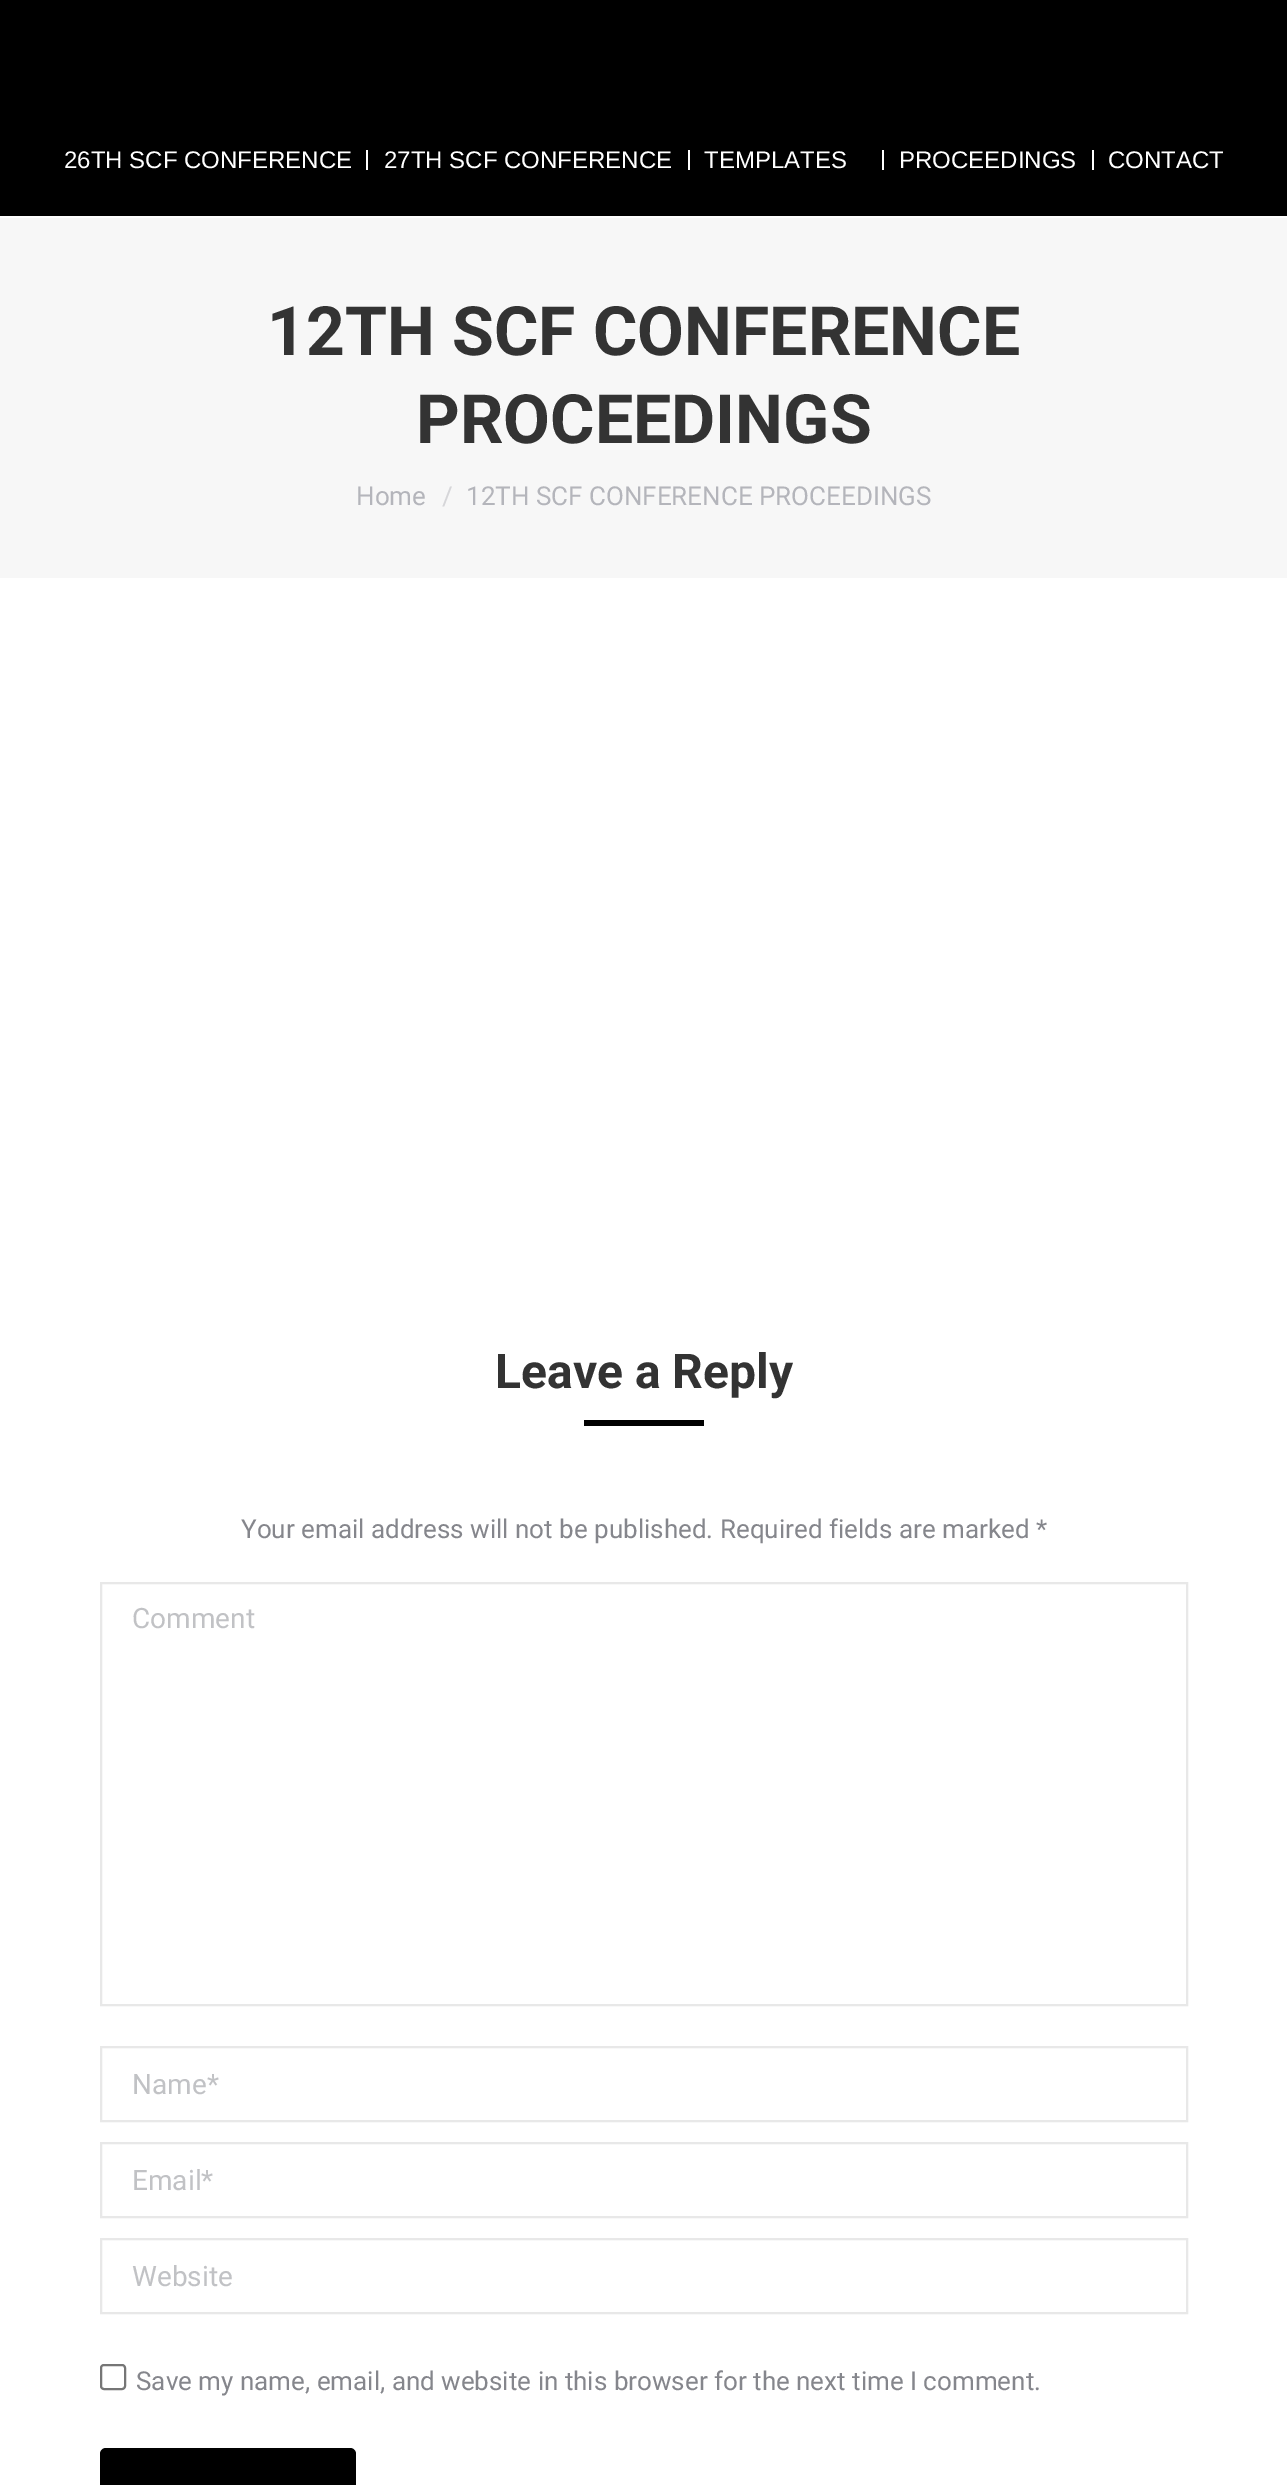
%!PS
<< /PageSize [1287 2485] >> setpagedevice
/fl/fill load def
/st/stroke load def
/lw/setlinewidth load def
/co { dup -16 bitshift 255 div exch dup -8 bitshift 255 and 255 div exch 255 and 255 div setrgbcolor } def
/fn { [ exch dup neg 0 0 3 -1 roll 0 0 ] selectfont } def
/tx { co fn moveto show } def
/bx { co rectfill } def
/rr { 5 dict begin { /r /h /w /y /x } { exch def } forall
  x r add y moveto x w add y 2 copy h add r arct x w add y h add x 1 index r arct
  x y h add x y r arct x y 2 copy exch w add exch r arct closepath end } def
0 2485 translate 1 -1 scale
4 setmiterlimit
0 0 1287 2485 16#FFFFFF bx
0 0 1287 216 16#000000 bx
366 150 2 20 16#FFFFFF bx
688 150 2 20 16#FFFFFF bx
882 150 2 20 16#FFFFFF bx
1092 150 2 20 16#FFFFFF bx
0 218 1287 360 16#F7F7F7 bx
584 1420 120 6 16#000000 bx
16#E8E8E8 co
2 lw
101 1583 1086 422 rectstroke
101 2047 1086 74 rectstroke
101 2143 1086 74 rectstroke
101 2239 1086 74 rectstroke
16#767676 co
101 2365 24 24 3 rr st
16#000000 co
100 2448 256 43 6 rr fl
(26TH SCF CONFERENCE) 64 168 /LiberationSans-Regular 24 16#FFFFFF tx
(27TH SCF CONFERENCE) 384 168 /LiberationSans-Regular 24 16#FFFFFF tx
(TEMPLATES) 704 168 /LiberationSans-Regular 24 16#FFFFFF tx
(PROCEEDINGS) 899 168 /LiberationSans-Regular 24 16#FFFFFF tx
(CONTACT) 1108 168 /LiberationSans-Regular 24 16#FFFFFF tx
(12TH SCF CONFERENCE) 267 355 /Roboto-Bold 68 16#333333 tx
(PROCEEDINGS) 416 443 /Roboto-Bold 68 16#333333 tx
(Home) 356 505 /Roboto-Regular 26 16#B4B5BB tx
(/) 442 505 /Roboto-Regular 26 16#D6D6D9 tx
(12TH SCF CONFERENCE PROCEEDINGS) 466 505 /Roboto-Regular 26 16#B4B5BB tx
(Leave a Reply) 495 1388 /Roboto-Bold 48 16#333333 tx
(Your email address will not be published. Required fields are marked *) 241 1538 /Roboto-Regular 26 16#85868C tx
(Comment) 132 1628 /Roboto-Regular 28 16#C1C2C5 tx
(Name*) 132 2094 /Roboto-Regular 28 16#C1C2C5 tx
(Email*) 132 2190 /Roboto-Regular 28 16#C1C2C5 tx
(Website) 132 2286 /Roboto-Regular 28 16#C1C2C5 tx
(Save my name, email, and website in this browser for the next time I comment.) 136 2390 /Roboto-Regular 26 16#85868C tx
showpage
